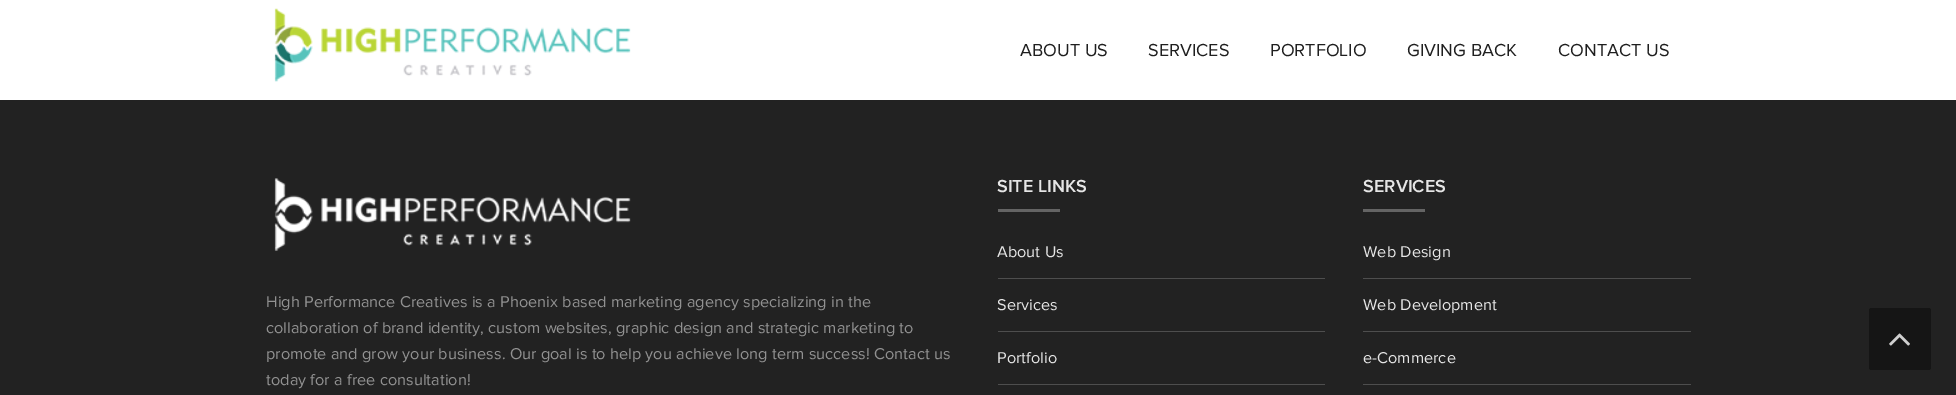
%!PS
<< /PageSize [1956 395] >> setpagedevice
/mt/moveto load def
/fl/fill load def
/co { dup -16 bitshift 255 div exch dup -8 bitshift 255 and 255 div exch 255 and 255 div setrgbcolor } def
/fn { [ exch dup neg 0 0 3 -1 roll 0 0 ] selectfont } def
/bx { co rectfill } def
/rr { 5 dict begin { /r /h /w /y /x } { exch def } forall
  x r add y moveto x w add y 2 copy h add r arct x w add y h add x 1 index r arct
  x y h add x y r arct x y 2 copy exch w add exch r arct closepath end } def
/im { 5 dict begin { /h /w /y /x /name } { exch def } forall
  gsave x y translate w h scale
  w h 8 [w 0 0 h 0 0] name (r) file false 3 colorimage grestore end } def
0 395 translate 1 -1 scale
4 setmiterlimit
0 0 1956 395 16#222222 bx
0 0 1956 100 16#FFFFFF bx
(media/1.raw) 274 8 357 74 im
(media/2.raw) 274 178 357 73 im
998 209 62 3 16#646464 bx
998 278 327 1 16#4E4E4E bx
998 331 327 1 16#4E4E4E bx
998 384 327 1 16#4E4E4E bx
1363 209 62 3 16#646464 bx
1363 278 328 1 16#4E4E4E bx
1363 331 328 1 16#4E4E4E bx
1363 384 328 1 16#4E4E4E bx
16#151515 co
1869 308 62 62 2.5 rr fl
(media/3.raw) 1889 333 21 13 im
/ProximaNova-Regular 18 fn
16#1F1F1F co
1020 56 mt .05 0 (ABOUT US) ashow
1148 56 mt .05 0 (SERVICES) ashow
1270 56 mt .05 0 (PORTFOLIO) ashow
1407 56 mt .05 0 (GIVING BACK) ashow
1558 56 mt .05 0 (CONTACT US) ashow
/ProximaNova-Regular 16.25 fn
16#919191 co
266 307 mt .05 0 (High Performance Creatives is a Phoenix based marketing agency specializing in the) ashow
266 333 mt .05 0 (collaboration of brand identity, custom websites, graphic design and strategic marketing to) ashow
266 359 mt .05 0 (promote and grow your business. Our goal is to help you achieve long term success! Contact us) ashow
266 385 mt .05 0 (today for a free consultation!) ashow
/ProximaNova-SemiBold 18 fn
16#E5E5E5 co
997 192 mt .05 0 (SITE LINKS) ashow
/ProximaNova-Regular 16.25 fn
997 257 mt .05 0 (About Us) ashow
997 310 mt .05 0 (Services) ashow
997 363 mt .05 0 (Portfolio) ashow
/ProximaNova-SemiBold 18 fn
1363 192 mt .05 0 (SERVICES) ashow
/ProximaNova-Regular 16.25 fn
1363 257 mt .05 0 (Web Design) ashow
1363 310 mt .05 0 (Web Development) ashow
1363 363 mt .05 0 (e-Commerce) ashow
showpage
